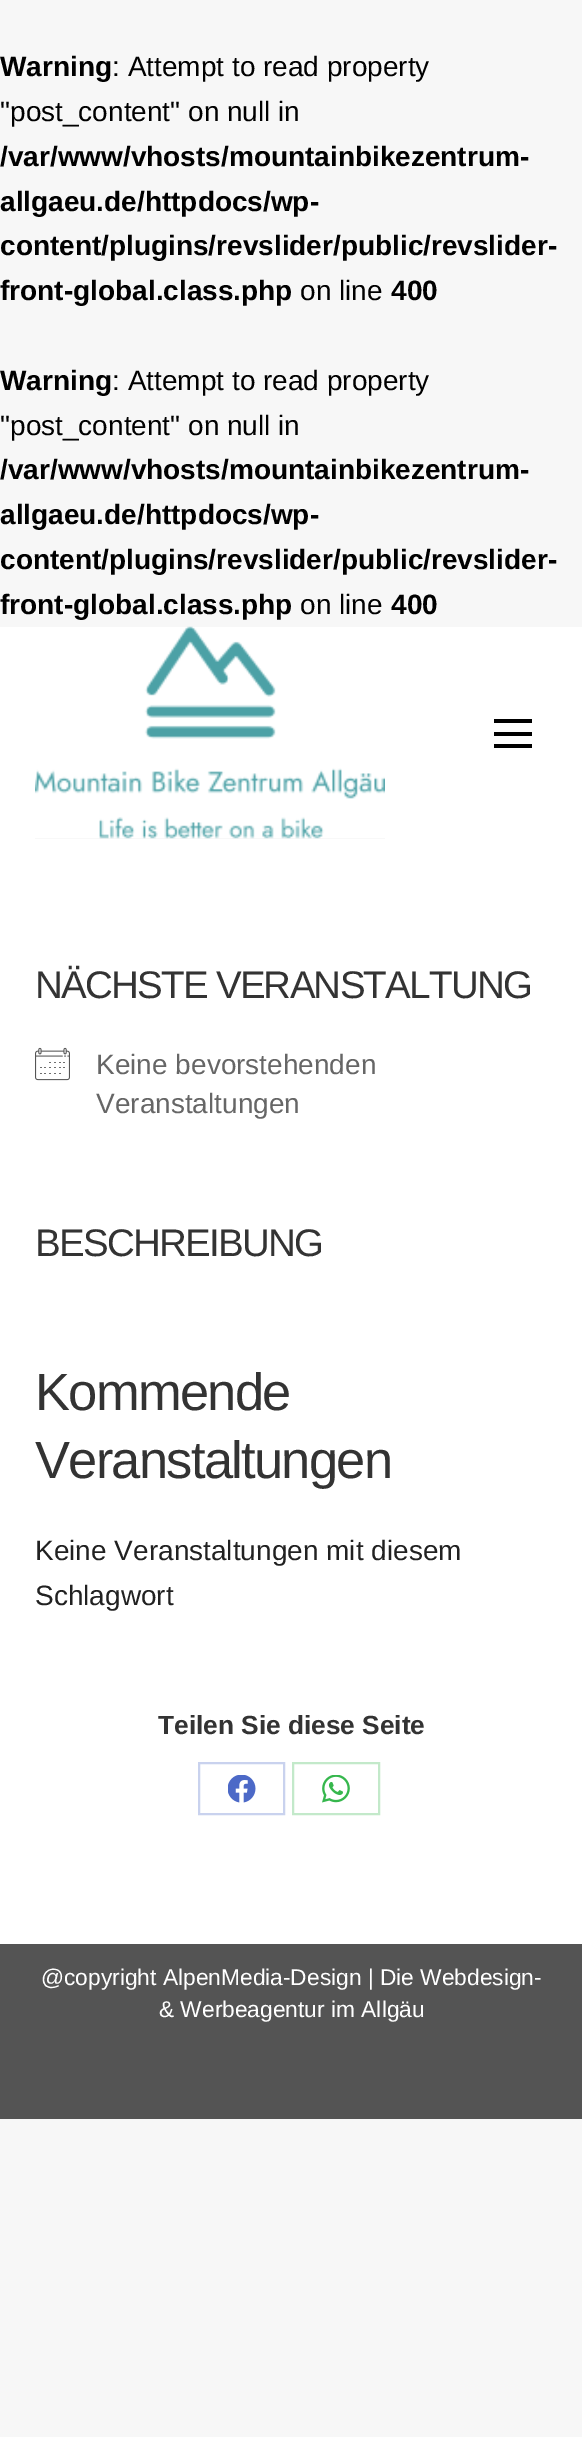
%!PS
<< /PageSize [582 2437] >> setpagedevice
/mt/moveto load def
/lw/setlinewidth load def
/co { dup -16 bitshift 255 div exch dup -8 bitshift 255 and 255 div exch 255 and 255 div setrgbcolor } def
/fn { [ exch dup neg 0 0 3 -1 roll 0 0 ] selectfont } def
/tx { co fn moveto show } def
/bx { co rectfill } def
/im { 5 dict begin { /h /w /y /x /name } { exch def } forall
  gsave x y translate w h scale
  w h 8 [w 0 0 h 0 0] name (r) file false 3 colorimage grestore end } def
0 2437 translate 1 -1 scale
4 setmiterlimit
0 0 582 2437 16#F7F7F7 bx
0 627 582 1317 16#FFFFFF bx
(media/1.raw) 35 626 350 213 im
494 719 38 4 16#000000 bx
494 732 38 4 16#000000 bx
494 744 38 4 16#000000 bx
(media/2.raw) 35 1047 35 34 im
16#C9D2EE co
2 lw
199 1763 85 51 rectstroke
(media/3.raw) 228 1775 28 28 im
16#C3E9CA co
293 1763 86 51 rectstroke
(media/4.raw) 322 1775 28 28 im
0 1944 582 175 16#545454 bx
(Warning) 0 76 /LiberationSans-Bold 28 16#000000 tx
(: Attempt to read property) 112 76 /LiberationSans-Regular 28 16#000000 tx
("post_content" on null in) 0 121 /LiberationSans-Regular 28 16#000000 tx
(/var/www/vhosts/mountainbikezentrum-) 0 166 /LiberationSans-Bold 28 16#000000 tx
(allgaeu.de/httpdocs/wp-) 0 211 /LiberationSans-Bold 28 16#000000 tx
(content/plugins/revslider/public/revslider-) 0 255 /LiberationSans-Bold 28 16#000000 tx
(front-global.class.php) 0 300 /LiberationSans-Bold 28 16#000000 tx
(on line) 300 300 /LiberationSans-Regular 28 16#000000 tx
(400) 391 300 /LiberationSans-Bold 28 16#000000 tx
(Warning) 0 390 /LiberationSans-Bold 28 16#000000 tx
(: Attempt to read property) 112 390 /LiberationSans-Regular 28 16#000000 tx
("post_content" on null in) 0 435 /LiberationSans-Regular 28 16#000000 tx
(/var/www/vhosts/mountainbikezentrum-) 0 479 /LiberationSans-Bold 28 16#000000 tx
(allgaeu.de/httpdocs/wp-) 0 524 /LiberationSans-Bold 28 16#000000 tx
(content/plugins/revslider/public/revslider-) 0 569 /LiberationSans-Bold 28 16#000000 tx
(front-global.class.php) 0 614 /LiberationSans-Bold 28 16#000000 tx
(on line) 300 614 /LiberationSans-Regular 28 16#000000 tx
(400) 391 614 /LiberationSans-Bold 28 16#000000 tx
/LiberationSans-Regular 38.5 fn
16#333333 co
35 998 mt -1.75 0 (NÄCHSTE VERANSTALTUNG) ashow
(Keine bevorstehenden) 96 1074 /LiberationSans-Regular 28 16#666666 tx
(Veranstaltungen) 96 1113 /LiberationSans-Regular 28 16#666666 tx
/LiberationSans-Regular 38.5 fn
16#333333 co
35 1256 mt -1.75 0 (BESCHREIBUNG) ashow
/LiberationSans-Regular 52.5 fn
35 1410 mt -1.75 0 (Kommende) ashow
35 1478 mt -1.75 0 (Veranstaltungen) ashow
(Keine Veranstaltungen mit diesem) 35 1560 /LiberationSans-Regular 28 16#212121 tx
(Schlagwort) 35 1605 /LiberationSans-Regular 28 16#212121 tx
(Teilen Sie diese Seite) 158 1734 /LiberationSans-Bold 26.25 16#333333 tx
(@copyright AlpenMedia-Design | Die Webdesign-) 41 1985 /LiberationSans-Regular 22.75 16#FFFFFF tx
(& Werbeagentur im Allgäu) 159 2017 /LiberationSans-Regular 22.75 16#FFFFFF tx
showpage
